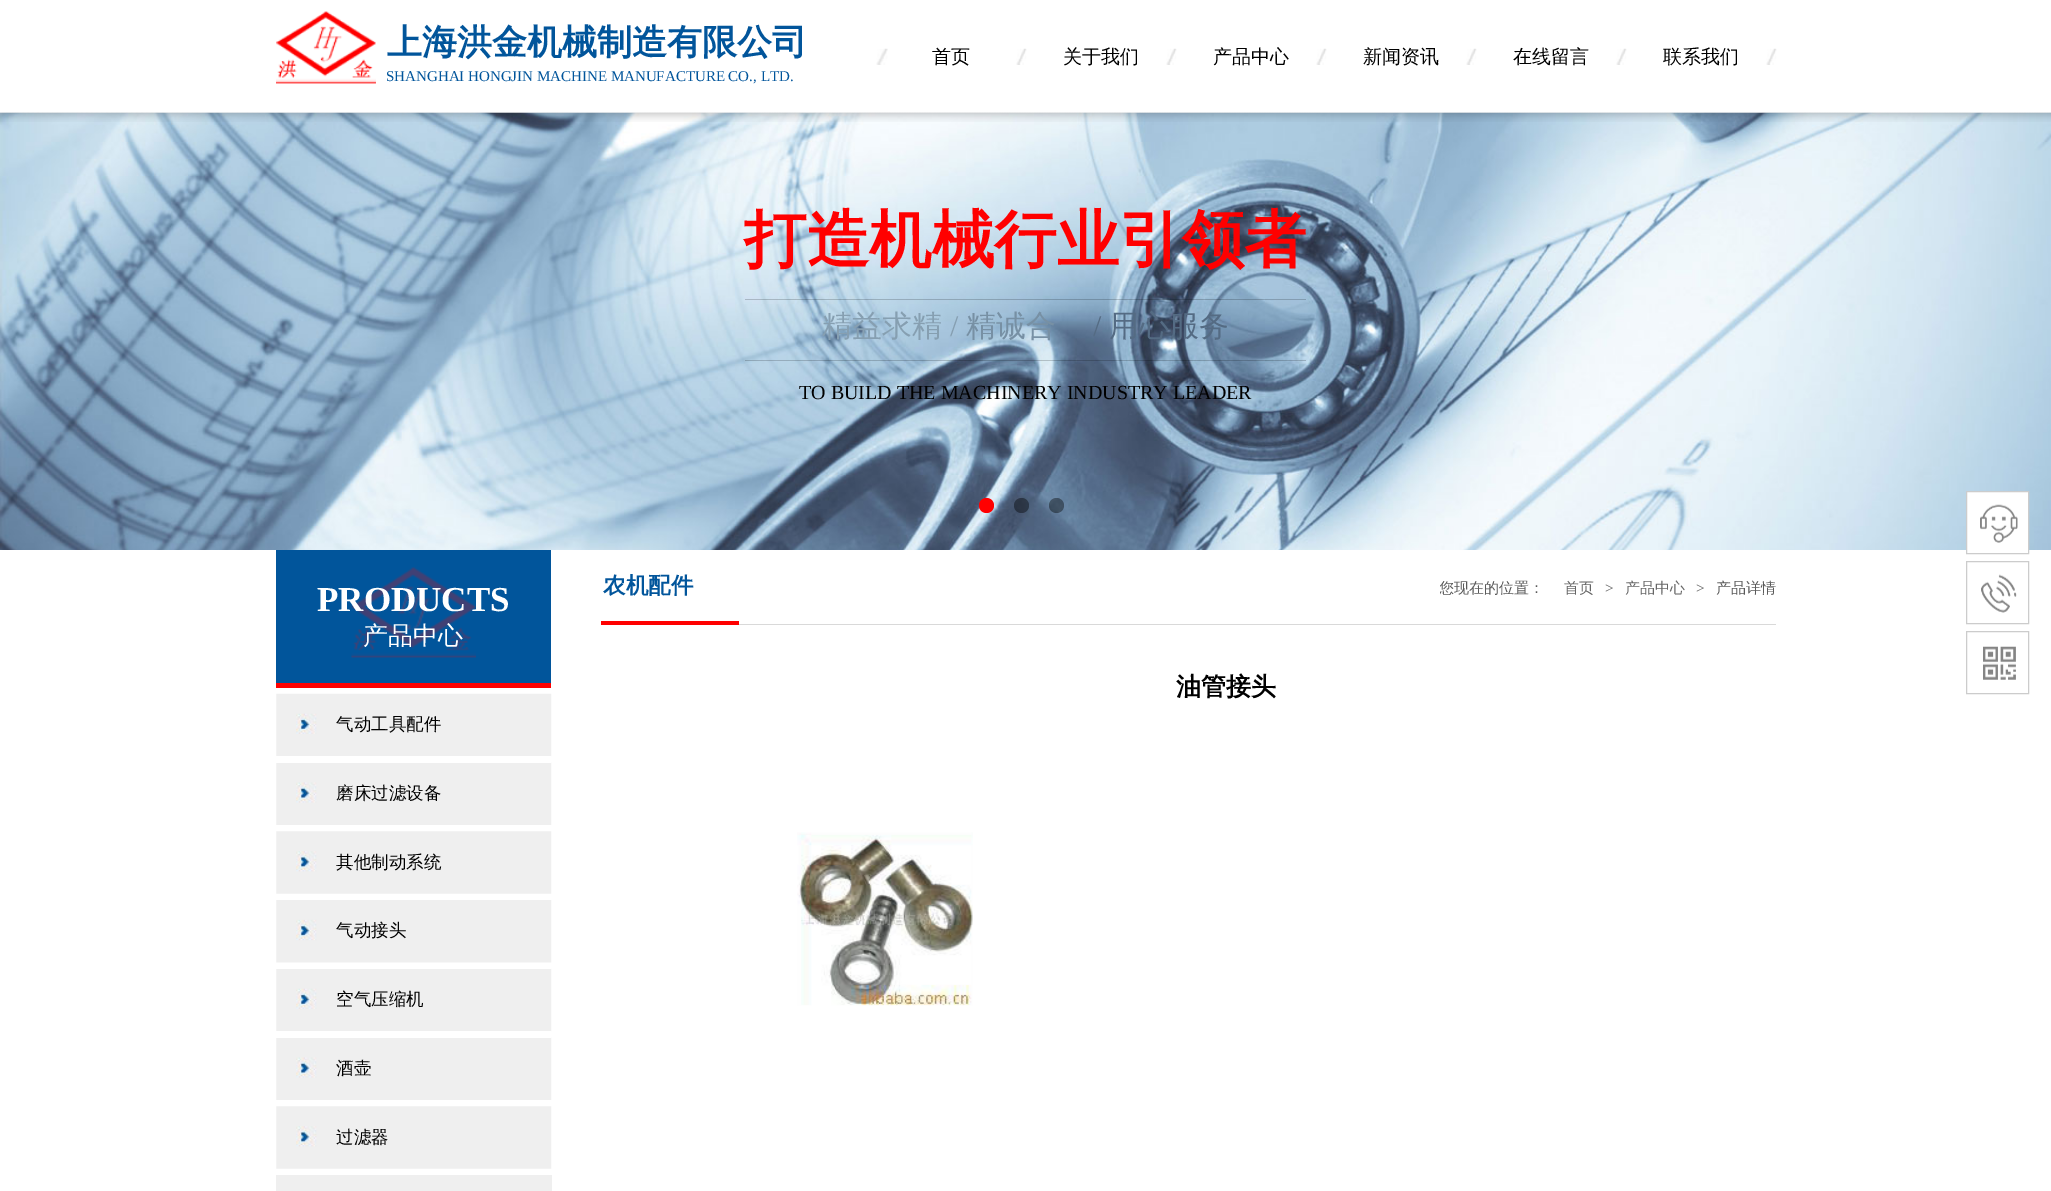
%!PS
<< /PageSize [2051 1191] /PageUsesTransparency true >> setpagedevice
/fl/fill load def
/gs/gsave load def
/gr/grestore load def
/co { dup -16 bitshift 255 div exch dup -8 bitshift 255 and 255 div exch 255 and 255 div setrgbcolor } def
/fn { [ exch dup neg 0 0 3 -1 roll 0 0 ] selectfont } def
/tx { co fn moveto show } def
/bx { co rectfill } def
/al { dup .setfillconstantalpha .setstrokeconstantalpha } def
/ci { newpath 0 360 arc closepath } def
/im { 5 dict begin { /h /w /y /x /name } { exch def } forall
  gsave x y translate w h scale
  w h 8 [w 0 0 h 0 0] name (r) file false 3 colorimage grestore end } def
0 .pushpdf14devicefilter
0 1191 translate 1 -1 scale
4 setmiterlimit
0 0 2051 1191 16#FFFFFF bx
(media/1.raw) 276 11 100 73 im
(media/2.raw) 876 48 12 17 im
(media/3.raw) 1016 48 11 17 im
(media/3.raw) 1166 48 11 17 im
(media/3.raw) 1316 48 11 17 im
(media/3.raw) 1466 48 11 17 im
(media/3.raw) 1616 48 11 17 im
(media/3.raw) 1766 48 11 17 im
(media/5.raw) 0 112 2051 438 im
(media/4.raw) 0 112 2051 10 im
16#FF0000 co
986.5 505.5 7.5 ci fl
0.4 al
16#000000 co
1021.5 505.5 7.5 ci fl
1056.5 505.5 7.5 ci fl
0.19 al
745 299 561 1 16#000000 bx
745 360 561 1 16#000000 bx
1 al
276 550 275 133 16#01559B bx
276 683 275 5 16#FF0000 bx
(media/6.raw) 351 567 125 91 im
(media/7.raw) 276 693 276 64 im
(media/8.raw) 276 762 276 63 im
276 756 275 7 16#FFFFFF bx
(media/9.raw) 276 831 276 63 im
(media/10.raw) 276 900 276 63 im
(media/7.raw) 276 968 276 64 im
276 968 275 1 16#FFFFFF bx
(media/8.raw) 276 1037 276 63 im
276 1031 275 7 16#FFFFFF bx
(media/9.raw) 276 1106 276 63 im
276 1175 276 16 16#EFEFEF bx
739 624 1037 1 16#D9D9D9 bx
601 621 138 4 16#FF0000 bx
(media/11.raw) 797 832 176 174 im
1967 492 61 58 16#FFFFFF bx
16#CCCCCC co
1966.5 491.5 62 62 rectstroke
(media/12.raw) 1980 504 38 39 im
1966.5 561.5 62 62 rectstroke
(media/13.raw) 1981 574 36 39 im
1966.5 631.5 62 62 rectstroke
(media/14.raw) 1983 646 33 34 im
(上海洪金机械制造有限公司) 387 54 /WenQuanYiZenHei-Bold 35 16#01559B tx
(首页) 932 63 /WenQuanYiZenHei-Medium 19 16#000000 tx
(关于我们) 1063 63 /WenQuanYiZenHei-Medium 19 16#000000 tx
(产品中心) 1213 63 /WenQuanYiZenHei-Medium 19 16#000000 tx
(新闻资讯) 1363 63 /WenQuanYiZenHei-Medium 19 16#000000 tx
(在线留言) 1513 63 /WenQuanYiZenHei-Medium 19 16#000000 tx
(联系我们) 1663 63 /WenQuanYiZenHei-Medium 19 16#000000 tx
(SHANGHAI HONGJIN MACHINE MANUFACTURE CO., LTD.) 386 81 /LiberationSerif-Regular 15 16#01559B tx
(打造机械行业引领者) 744 261 /WenQuanYiZenHei-Bold 62.5 16#FF0000 tx
(精益求精) 822 336 /WenQuanYiZenHei-Medium 30 16#869FB1 tx
(/) 950 336 /LiberationSerif-Regular 30 16#869FB1 tx
(精诚合) 966 336 /WenQuanYiZenHei-Medium 30 16#7790A4 tx
(/) 1093 336 /LiberationSerif-Regular 30 16#546B83 tx
(用心服务) 1109 336 /WenQuanYiZenHei-Medium 30 16#546B83 tx
(TO BUILD THE MACHINERY INDUSTRY LEADER) 799 399 /LiberationSerif-Regular 20 16#000000 tx
(PRODUCTS) 317 611 /LiberationSerif-Bold 35 16#FFFFFF tx
(产品中心) 363 644 /WenQuanYiZenHei-Medium 25 16#FFFFFF tx
(气动工具配件) 336 730 /WenQuanYiZenHei-Medium 17.5 16#000000 tx
(磨床过滤设备) 336 799 /WenQuanYiZenHei-Medium 17.5 16#000000 tx
(其他制动系统) 336 868 /WenQuanYiZenHei-Medium 17.5 16#000000 tx
(气动接头) 336 936 /WenQuanYiZenHei-Medium 17.5 16#000000 tx
(空气压缩机) 336 1005 /WenQuanYiZenHei-Medium 17.5 16#000000 tx
(酒壶) 336 1074 /WenQuanYiZenHei-Medium 17.5 16#000000 tx
(过滤器) 336 1143 /WenQuanYiZenHei-Medium 17.5 16#000000 tx
(农机配件) 603 593 /WenQuanYiZenHei-Bold 22.5 16#01559B tx
gs
1440 578 123 21 rectclip
(您现在的位置：) 1439 593 /WenQuanYiZenHei-Medium 15 16#5A5A5A tx
gr
(首页) 1564 593 /WenQuanYiZenHei-Medium 15 16#666666 tx
(>) 1605 593 /LiberationSerif-Regular 15 16#5A5A5A tx
(产品中心) 1625 593 /WenQuanYiZenHei-Medium 15 16#666666 tx
(>) 1696 593 /LiberationSerif-Regular 15 16#5A5A5A tx
(产品详情) 1716 593 /WenQuanYiZenHei-Medium 15 16#5A5A5A tx
(油管接头) 1176 695 /WenQuanYiZenHei-Bold 25 16#000000 tx
.poppdf14devicefilter showpage
